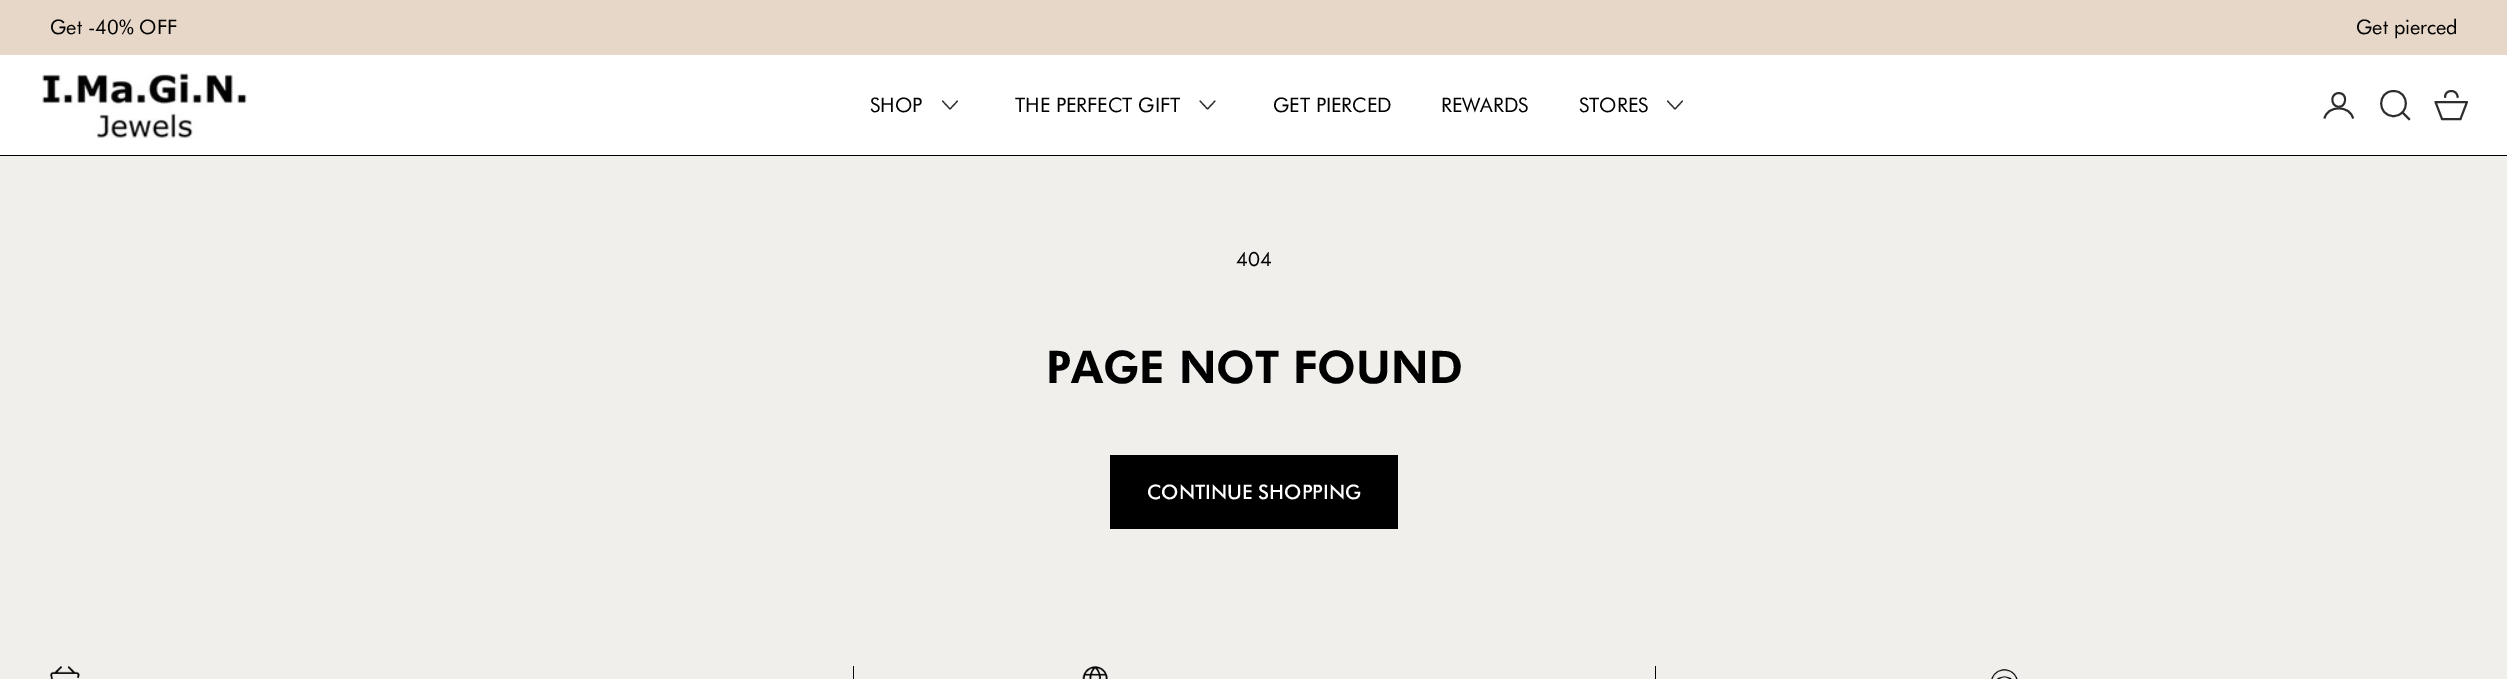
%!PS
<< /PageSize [2507 679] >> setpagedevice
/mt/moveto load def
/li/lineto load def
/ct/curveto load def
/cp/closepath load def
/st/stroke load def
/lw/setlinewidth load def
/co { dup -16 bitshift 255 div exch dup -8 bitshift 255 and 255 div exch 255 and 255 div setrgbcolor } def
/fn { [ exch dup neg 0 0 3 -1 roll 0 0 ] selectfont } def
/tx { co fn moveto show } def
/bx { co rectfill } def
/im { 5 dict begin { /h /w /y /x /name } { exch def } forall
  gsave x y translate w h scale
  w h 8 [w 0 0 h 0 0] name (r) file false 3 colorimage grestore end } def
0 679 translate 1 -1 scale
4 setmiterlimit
0 0 2507 679 16#F1EFEB bx
0 0 2507 55 16#E7D7C8 bx
0 55 2507 100 16#FFFFFF bx
0 155 2507 1 16#000000 bx
(media/1.raw) 42 73 205 66 im
16#2D2D2D co
1.2 lw
1 setlinecap
1 setlinejoin
942.5 101 mt 950 109 li 957.5 101 li st
1200 101 mt 1207.5 109 li 1215 101 li st
1667.5 101 mt 1675 109 li 1682.5 101 li st
1.9 lw
2345 100 mt 2344.5 110.5 2331 108 2332.5 98.5 ct 2333.5 90.5 2346 91.5 2345 100 ct cp st
0 setlinecap
0 setlinejoin
2324.5 118.5 mt 2327 105 2350.5 105 2353 118.5 ct st
1 setlinecap
1 setlinejoin
2393.5 116 mt 2410 116 2410 91 2393.5 91 ct 2377 91 2377 116 2393.5 116 ct cp st
2 setlinecap
2409 119 mt 2402.5 112.5 li st
1 setlinecap
2457.5 97 mt 2457.5 89 2445 89 2445 97 ct 2435.5 102 mt 2467 102 li 2460.5 119 li 2442 119 li cp st
1110 455 288 74 16#000000 bx
(media/2.raw) 50 666 30 13 im
853 666 1 13 16#000000 bx
(media/3.raw) 1082 666 26 13 im
1655 666 1 13 16#000000 bx
(media/4.raw) 1991 669 27 10 im
(Get -40% OFF) 50 34 /Futura-Regular 20 16#000000 tx
(Get pierced) 2356 34 /Futura-Regular 20 16#000000 tx
(SHOP) 870 112 /Futura-Regular 20 16#000000 tx
(THE PERFECT GIFT) 1015 112 /Futura-Regular 20 16#000000 tx
(GET PIERCED) 1273 112 /Futura-Regular 20 16#000000 tx
(REWARDS) 1441 112 /Futura-Regular 20 16#000000 tx
(STORES) 1579 112 /Futura-Regular 20 16#000000 tx
(404) 1236 266 /Jost-Regular 20 16#000000 tx
(PAGE NOT FOUND) 1046 383 /Futura-Black 45 16#000000 tx
(CONTINUE SHOPPING) 1147 499 /Futura-Medium 20 16#FFFFFF tx
showpage
